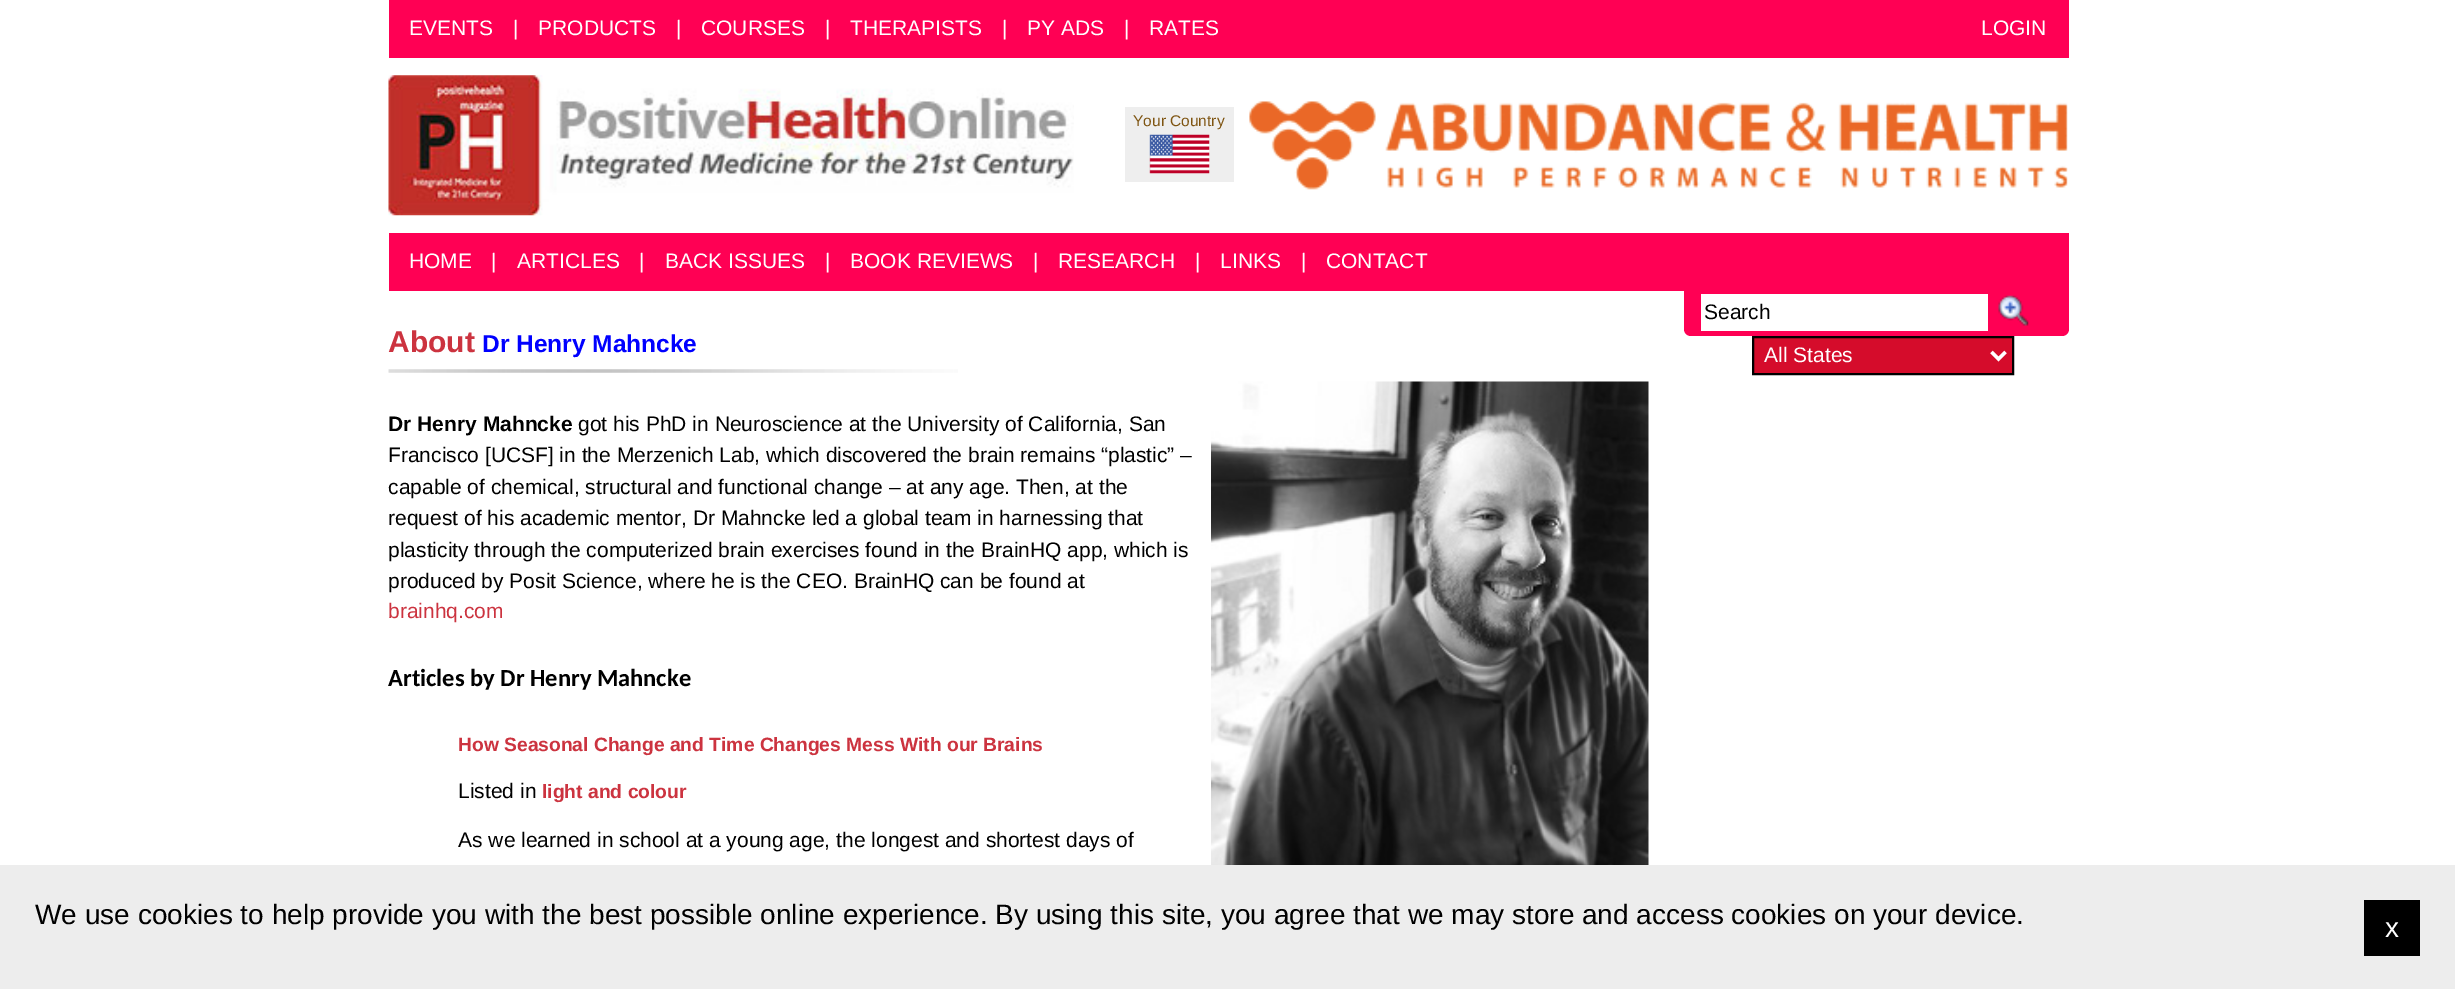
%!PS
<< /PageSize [2455 989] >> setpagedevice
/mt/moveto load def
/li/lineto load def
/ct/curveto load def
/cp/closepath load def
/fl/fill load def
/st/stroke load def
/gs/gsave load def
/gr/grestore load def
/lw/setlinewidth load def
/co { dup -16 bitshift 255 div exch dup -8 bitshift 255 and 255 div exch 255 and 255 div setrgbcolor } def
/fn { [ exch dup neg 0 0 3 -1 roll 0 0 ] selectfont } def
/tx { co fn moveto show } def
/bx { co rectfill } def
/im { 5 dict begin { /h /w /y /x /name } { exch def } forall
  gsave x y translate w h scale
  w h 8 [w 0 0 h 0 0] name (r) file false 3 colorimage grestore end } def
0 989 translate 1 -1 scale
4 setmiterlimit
0 0 2455 989 16#FFFFFF bx
389 0 1680 58 16#FF0054 bx
(media/1.raw) 388 75 686 141 im
1125 107 109 75 16#EEEEEE bx
(media/2.raw) 1149 134 61 40 im
(media/3.raw) 1249 101 819 89 im
389 233 1680 58 16#FF0054 bx
(media/4.raw) 388 369 570 4 im
(media/5.raw) 1211 381 438 484 im
1684 291 mt 2069 291 li 2069 329 li 2069 333 2066 336 2062 336 ct 1691 336 li 1687 336 1684 333 1684 329 ct cp fl
1701 294 287 37 16#FFFFFF bx
(media/6.raw) 1998 295 31 31 im
16#D50C2B co
1753 337 mt 2013 337 li 2013 374 li 1753 374 li cp gs fl gr
16#000000 co
2 lw
st
16#FFFFFF co
3.5 lw
1991.5 352 mt 1998.5 359 li 2005.5 352 li st
0 865 2455 124 16#EDEDED bx
2364 900 56 56 16#000000 bx
(EVENTS) 409 35 /LiberationSans-Regular 21 16#FFFFFF tx
(|) 513 35 /LiberationSans-Regular 21 16#FFFFFF tx
(PRODUCTS) 538 35 /LiberationSans-Regular 21 16#FFFFFF tx
(|) 676 35 /LiberationSans-Regular 21 16#FFFFFF tx
(COURSES) 701 35 /LiberationSans-Regular 21 16#FFFFFF tx
(|) 825 35 /LiberationSans-Regular 21 16#FFFFFF tx
(THERAPISTS) 850 35 /LiberationSans-Regular 21 16#FFFFFF tx
(|) 1002 35 /LiberationSans-Regular 21 16#FFFFFF tx
(PY ADS) 1027 35 /LiberationSans-Regular 21 16#FFFFFF tx
(|) 1124 35 /LiberationSans-Regular 21 16#FFFFFF tx
(RATES) 1149 35 /LiberationSans-Regular 21 16#FFFFFF tx
(LOGIN) 1981 35 /LiberationSans-Regular 21 16#FFFFFF tx
(Your Country) 1133 126 /LiberationSans-Regular 15.5 16#7E5411 tx
(HOME) 409 268 /LiberationSans-Regular 21 16#FFFFFF tx
(|) 491 268 /LiberationSans-Regular 21 16#FFFFFF tx
(ARTICLES) 517 268 /LiberationSans-Regular 21 16#FFFFFF tx
(|) 639 268 /LiberationSans-Regular 21 16#FFFFFF tx
(BACK ISSUES) 665 268 /LiberationSans-Regular 21 16#FFFFFF tx
(|) 825 268 /LiberationSans-Regular 21 16#FFFFFF tx
(BOOK REVIEWS) 850 268 /LiberationSans-Regular 21 16#FFFFFF tx
(|) 1033 268 /LiberationSans-Regular 21 16#FFFFFF tx
(RESEARCH) 1058 268 /LiberationSans-Regular 21 16#FFFFFF tx
(|) 1195 268 /LiberationSans-Regular 21 16#FFFFFF tx
(LINKS) 1220 268 /LiberationSans-Regular 21 16#FFFFFF tx
(|) 1301 268 /LiberationSans-Regular 21 16#FFFFFF tx
(CONTACT) 1326 268 /LiberationSans-Regular 21 16#FFFFFF tx
(About) 388 352 /LiberationSans-Bold 30 16#CC333F tx
(Dr Henry Mahncke) 482 352 /LiberationSans-Bold 24.5 16#0000FF tx
(Dr Henry Mahncke) 388 431 /LiberationSans-Bold 21 16#000000 tx
(got his PhD in Neuroscience at the University of California, San) 578 431 /LiberationSans-Regular 21 16#000000 tx
(Francisco [UCSF] in the Merzenich Lab, which discovered the brain remains “plastic” –) 388 462 /LiberationSans-Regular 21 16#000000 tx
(capable of chemical, structural and functional change – at any age. Then, at the) 388 494 /LiberationSans-Regular 21 16#000000 tx
(request of his academic mentor, Dr Mahncke led a global team in harnessing that) 388 525 /LiberationSans-Regular 21 16#000000 tx
(plasticity through the computerized brain exercises found in the BrainHQ app, which is) 388 557 /LiberationSans-Regular 21 16#000000 tx
(produced by Posit Science, where he is the CEO. BrainHQ can be found at) 388 588 /LiberationSans-Regular 21 16#000000 tx
(brainhq.com) 388 618 /LiberationSans-Regular 21 16#CC333F tx
(Articles by Dr Henry Mahncke) 388 686 /Carlito-Bold 24.5 16#000000 tx
(How Seasonal Change and Time Changes Mess With our Brains) 458 751 /LiberationSans-Bold 19.25 16#CC333F tx
(Listed in) 458 798 /LiberationSans-Regular 21 16#000000 tx
(light and colour) 542 798 /LiberationSans-Bold 19.25 16#CC333F tx
(As we learned in school at a young age, the longest and shortest days of) 458 847 /LiberationSans-Regular 21 16#000000 tx
(Search) 1704 319 /LiberationSans-Regular 21 16#000000 tx
(All States) 1764 362 /LiberationSans-Regular 21 16#FFFFFF tx
(We use cookies to help provide you with the best possible online experience. By using this site, you agree that we may store and access cookies on your device.) 35 924 /LiberationSans-Regular 28 16#000000 tx
(x) 2385 937 /LiberationSans-Regular 28 16#FFFFFF tx
showpage
